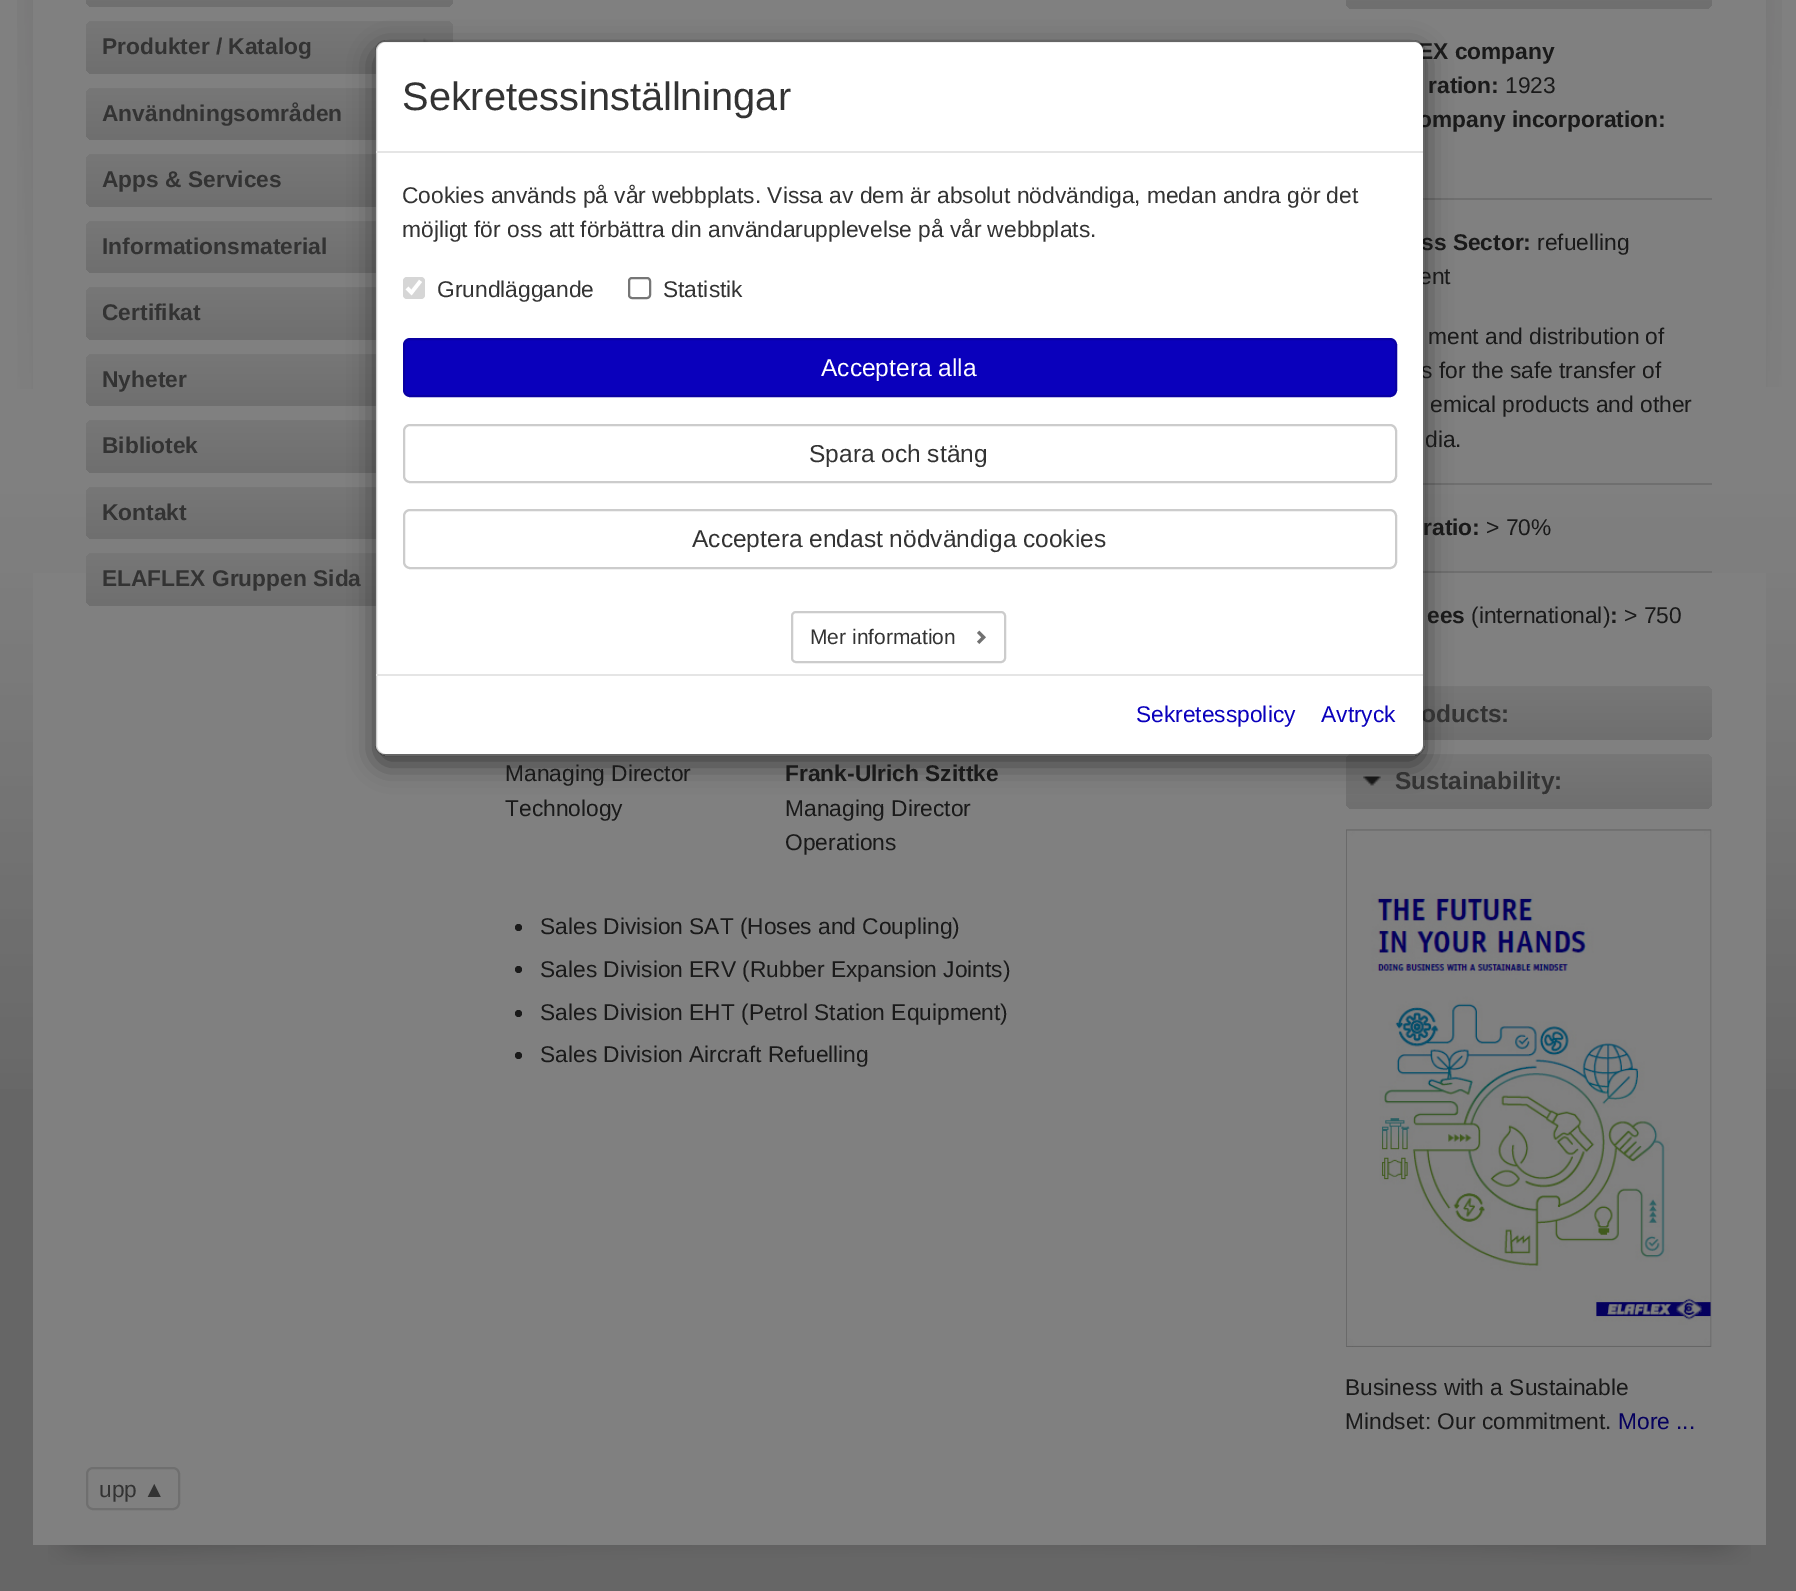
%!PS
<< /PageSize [1796 1591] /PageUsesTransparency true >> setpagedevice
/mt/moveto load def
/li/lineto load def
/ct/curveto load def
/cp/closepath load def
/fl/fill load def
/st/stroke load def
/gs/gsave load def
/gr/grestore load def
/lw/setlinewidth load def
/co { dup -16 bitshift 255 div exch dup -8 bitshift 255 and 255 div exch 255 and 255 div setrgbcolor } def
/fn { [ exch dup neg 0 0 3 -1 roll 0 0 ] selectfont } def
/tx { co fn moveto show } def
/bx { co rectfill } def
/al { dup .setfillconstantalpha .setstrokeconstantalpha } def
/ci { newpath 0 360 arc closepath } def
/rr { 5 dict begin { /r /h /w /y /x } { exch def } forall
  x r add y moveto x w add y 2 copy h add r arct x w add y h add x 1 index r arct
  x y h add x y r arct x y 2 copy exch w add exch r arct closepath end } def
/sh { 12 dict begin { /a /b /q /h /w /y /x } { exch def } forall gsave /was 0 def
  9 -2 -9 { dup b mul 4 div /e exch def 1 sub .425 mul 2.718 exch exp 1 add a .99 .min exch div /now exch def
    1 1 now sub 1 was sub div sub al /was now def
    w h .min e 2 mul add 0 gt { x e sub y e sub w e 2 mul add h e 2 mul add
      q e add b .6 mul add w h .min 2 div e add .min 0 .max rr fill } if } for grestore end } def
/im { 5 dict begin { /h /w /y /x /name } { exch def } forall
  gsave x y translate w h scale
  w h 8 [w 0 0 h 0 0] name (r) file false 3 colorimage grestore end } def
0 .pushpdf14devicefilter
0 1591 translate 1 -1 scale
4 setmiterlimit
0 0 1796 1591 16#666666 bx
(media/1.raw) 0 0 1796 1089 im
33 573 1733 972 16#808080 bx
(media/2.raw) 17 0 16 389 im
gs 86 -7 367 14 7 rr clip newpath
<< /ShadingType 2 /ColorSpace /DeviceRGB /Coords [270 7 270 -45] /Extend [true true] /Function << /FunctionType 2 /Domain [0 1] /C0 [.435 .435 .435] /C1 [.467 .467 .467] /N 1 >> >> shfill gr
gs 86 21 367 53 7 rr clip newpath
<< /ShadingType 2 /ColorSpace /DeviceRGB /Coords [270 74 270 21] /Extend [true true] /Function << /FunctionType 2 /Domain [0 1] /C0 [.435 .435 .435] /C1 [.467 .467 .467] /N 1 >> >> shfill gr
(media/3.raw) 423 38 7 4 im
gs 86 88 367 52 7 rr clip newpath
<< /ShadingType 2 /ColorSpace /DeviceRGB /Coords [270 140 270 88] /Extend [true true] /Function << /FunctionType 2 /Domain [0 1] /C0 [.435 .435 .435] /C1 [.467 .467 .467] /N 1 >> >> shfill gr
gs 86 154 367 53 7 rr clip newpath
<< /ShadingType 2 /ColorSpace /DeviceRGB /Coords [270 207 270 154] /Extend [true true] /Function << /FunctionType 2 /Domain [0 1] /C0 [.435 .435 .435] /C1 [.467 .467 .467] /N 1 >> >> shfill gr
gs 86 221 367 52 7 rr clip newpath
<< /ShadingType 2 /ColorSpace /DeviceRGB /Coords [270 273 270 221] /Extend [true true] /Function << /FunctionType 2 /Domain [0 1] /C0 [.435 .435 .435] /C1 [.467 .467 .467] /N 1 >> >> shfill gr
gs 86 287 367 53 7 rr clip newpath
<< /ShadingType 2 /ColorSpace /DeviceRGB /Coords [270 340 270 287] /Extend [true true] /Function << /FunctionType 2 /Domain [0 1] /C0 [.435 .435 .435] /C1 [.467 .467 .467] /N 1 >> >> shfill gr
gs 86 354 367 52 7 rr clip newpath
<< /ShadingType 2 /ColorSpace /DeviceRGB /Coords [270 406 270 354] /Extend [true true] /Function << /FunctionType 2 /Domain [0 1] /C0 [.435 .435 .435] /C1 [.467 .467 .467] /N 1 >> >> shfill gr
gs 86 420 367 53 7 rr clip newpath
<< /ShadingType 2 /ColorSpace /DeviceRGB /Coords [270 473 270 420] /Extend [true true] /Function << /FunctionType 2 /Domain [0 1] /C0 [.435 .435 .435] /C1 [.467 .467 .467] /N 1 >> >> shfill gr
gs 86 487 367 52 7 rr clip newpath
<< /ShadingType 2 /ColorSpace /DeviceRGB /Coords [270 539 270 487] /Extend [true true] /Function << /FunctionType 2 /Domain [0 1] /C0 [.435 .435 .435] /C1 [.467 .467 .467] /N 1 >> >> shfill gr
gs 86 553 367 53 7 rr clip newpath
<< /ShadingType 2 /ColorSpace /DeviceRGB /Coords [270 606 270 553] /Extend [true true] /Function << /FunctionType 2 /Domain [0 1] /C0 [.435 .435 .435] /C1 [.467 .467 .467] /N 1 >> >> shfill gr
16#6F6F6F co
2 lw
87 1468 92 41 6 rr st
16#1A1A1A co
518.5 927.5 3.5 ci fl
518.5 969.5 3.5 ci fl
518.5 1013.5 3.5 ci fl
518.5 1055.5 3.5 ci fl
gs 1346 -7 366 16 7 rr clip newpath
<< /ShadingType 2 /ColorSpace /DeviceRGB /Coords [1529 9 1529 -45] /Extend [true true] /Function << /FunctionType 2 /Domain [0 1] /C0 [.435 .435 .435] /C1 [.467 .467 .467] /N 1 >> >> shfill gr
1423 198 289 2 16#6F6F6F bx
1423 483 289 2 16#6F6F6F bx
1423 571 289 2 16#6F6F6F bx
gs 1346 686 366 54 7 rr clip newpath
<< /ShadingType 2 /ColorSpace /DeviceRGB /Coords [1529 740 1529 686] /Extend [true true] /Function << /FunctionType 2 /Domain [0 1] /C0 [.435 .435 .435] /C1 [.467 .467 .467] /N 1 >> >> shfill gr
gs 1346 754 366 55 7 rr clip newpath
<< /ShadingType 2 /ColorSpace /DeviceRGB /Coords [1529 809 1529 754] /Extend [true true] /Function << /FunctionType 2 /Domain [0 1] /C0 [.435 .435 .435] /C1 [.467 .467 .467] /N 1 >> >> shfill gr
(media/4.raw) 1363 776 18 10 im
(media/5.raw) 1346 829 366 518 im
(media/6.raw) 1766 0 16 387 im
gs
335 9 mt 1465 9 li 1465 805 li 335 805 li cp 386 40 mt 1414 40 li 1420 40 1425 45 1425 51 ct 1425 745 li 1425 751 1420 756 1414 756 ct 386 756 li 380 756 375 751 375 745 ct 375 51 li 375 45 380 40 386 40 ct cp eoclip newpath
16#000000 co
375 49 1050 716 11 13 .5 sh
gr
(media/8.raw) 48 1545 1703 20 im
(Produkter / Katalog) 102 54 /LiberationSans-Bold 22.75 16#333333 tx
(Användningsområden) 102 121 /LiberationSans-Bold 22.75 16#333333 tx
(Apps & Services) 102 187 /LiberationSans-Bold 22.75 16#333333 tx
(Informationsmaterial) 102 254 /LiberationSans-Bold 22.75 16#333333 tx
(Certifikat) 102 320 /LiberationSans-Bold 22.75 16#333333 tx
(Nyheter) 102 387 /LiberationSans-Bold 22.75 16#333333 tx
(Bibliotek) 102 453 /LiberationSans-Bold 22.75 16#333333 tx
(Kontakt) 102 520 /LiberationSans-Bold 22.75 16#333333 tx
(ELAFLEX Gruppen Sida) 102 586 /LiberationSans-Bold 22.75 16#333333 tx
(upp ▲) 99 1497 /LiberationSans-Regular 22.75 16#333333 tx
(Managing Director) 505 781 /LiberationSans-Regular 22.75 16#1A1A1A tx
(Technology) 505 816 /LiberationSans-Regular 22.75 16#1A1A1A tx
(Frank-Ulrich Szittke) 785 781 /LiberationSans-Bold 22.75 16#1A1A1A tx
(Managing Director) 785 816 /LiberationSans-Regular 22.75 16#1A1A1A tx
(Operations) 785 850 /LiberationSans-Regular 22.75 16#1A1A1A tx
(Sales Division SAT \(Hoses and Coupling\)) 540 934 /LiberationSans-Regular 22.75 16#1A1A1A tx
(Sales Division ERV \(Rubber Expansion Joints\)) 540 977 /LiberationSans-Regular 22.75 16#1A1A1A tx
(Sales Division EHT \(Petrol Station Equipment\)) 540 1020 /LiberationSans-Regular 22.75 16#1A1A1A tx
(Sales Division Aircraft Refuelling) 540 1062 /LiberationSans-Regular 22.75 16#1A1A1A tx
(EX company) 1418 59 /LiberationSans-Bold 22.75 16#1A1A1A tx
(ration:) 1428 93 /LiberationSans-Bold 22.75 16#1A1A1A tx
(1923) 1505 93 /LiberationSans-Regular 22.75 16#1A1A1A tx
(ompany incorporation:) 1418 127 /LiberationSans-Bold 22.75 16#1A1A1A tx
(ss Sector:) 1421 250 /LiberationSans-Bold 22.75 16#1A1A1A tx
(refuelling) 1537 250 /LiberationSans-Regular 22.75 16#1A1A1A tx
(ent) 1419 284 /LiberationSans-Regular 22.75 16#1A1A1A tx
(ment and distribution of) 1428 344 /LiberationSans-Regular 22.75 16#1A1A1A tx
(s for the safe transfer of) 1421 378 /LiberationSans-Regular 22.75 16#1A1A1A tx
(emical products and other) 1430 412 /LiberationSans-Regular 22.75 16#1A1A1A tx
(dia.) 1425 447 /LiberationSans-Regular 22.75 16#1A1A1A tx
(ratio:) 1423 535 /LiberationSans-Bold 22.75 16#1A1A1A tx
(> 70%) 1486 535 /LiberationSans-Regular 22.75 16#1A1A1A tx
(ees) 1427 623 /LiberationSans-Bold 22.75 16#1A1A1A tx
(\(international\)) 1471 623 /LiberationSans-Regular 22.75 16#1A1A1A tx
(:) 1610 623 /LiberationSans-Bold 22.75 16#1A1A1A tx
(> 750) 1624 623 /LiberationSans-Regular 22.75 16#1A1A1A tx
(oducts:) 1421 722 /LiberationSans-Bold 24.5 16#333333 tx
(Sustainability:) 1395 789 /LiberationSans-Bold 24.5 16#333333 tx
(Business with a Sustainable) 1345 1395 /LiberationSans-Regular 22.75 16#1A1A1A tx
(Mindset: Our commitment.) 1345 1429 /LiberationSans-Regular 22.75 16#1A1A1A tx
(More ...) 1618 1429 /LiberationSans-Regular 22.75 16#05005E tx
16#FFFFFF co
376 42 1047 712 9 rr fl
0.2 al
16#000000 co
376 41 1048 714 10 rr st
1 al
376 151 1047 2 16#E5E5E5 bx
(Sekretessinställningar) 402 110 /LiberationSans-Regular 39.75 16#333333 tx
(Cookies används på vår webbplats. Vissa av dem är absolut nödvändiga, medan andra gör det) 402 203 /LiberationSans-Regular 22.75 16#333333 tx
(möjligt för oss att förbättra din användarupplevelse på vår webbplats.) 402 237 /LiberationSans-Regular 22.75 16#333333 tx
16#D6D6D6 co
403 277 22 22 4 rr fl
16#FFFFFF co
3.6 lw
407 288 mt 411.5 292.5 li 420.5 281 li st
(Grundläggande) 437 297 /LiberationSans-Regular 22.75 16#333333 tx
16#767676 co
2 lw
629 278 21 20 3 rr st
(Statistik) 663 297 /LiberationSans-Regular 22.75 16#333333 tx
16#0A00BC co
404 339 992 57 6 rr gs fl gr
16#0900A3 co
st
(Acceptera alla) 821 376 /LiberationSans-Regular 24.5 16#FFFFFF tx
16#CCCCCC co
404 425 992 57 6 rr st
(Spara och stäng) 809 462 /LiberationSans-Regular 24.5 16#333333 tx
16#CCCCCC co
404 510 992 58 6 rr st
(Acceptera endast nödvändiga cookies) 692 547 /LiberationSans-Regular 24.5 16#333333 tx
16#CCCCCC co
792 612 213 50 4 rr st
(Mer information) 810 644 /LiberationSans-Regular 21 16#333333 tx
(media/7.raw) 977 630 9 14 im
376 674 1047 2 16#E5E5E5 bx
(Sekretesspolicy) 1136 722 /LiberationSans-Regular 22.75 16#0A00BC tx
(Avtryck) 1321 722 /LiberationSans-Regular 22.75 16#0A00BC tx
.poppdf14devicefilter showpage
